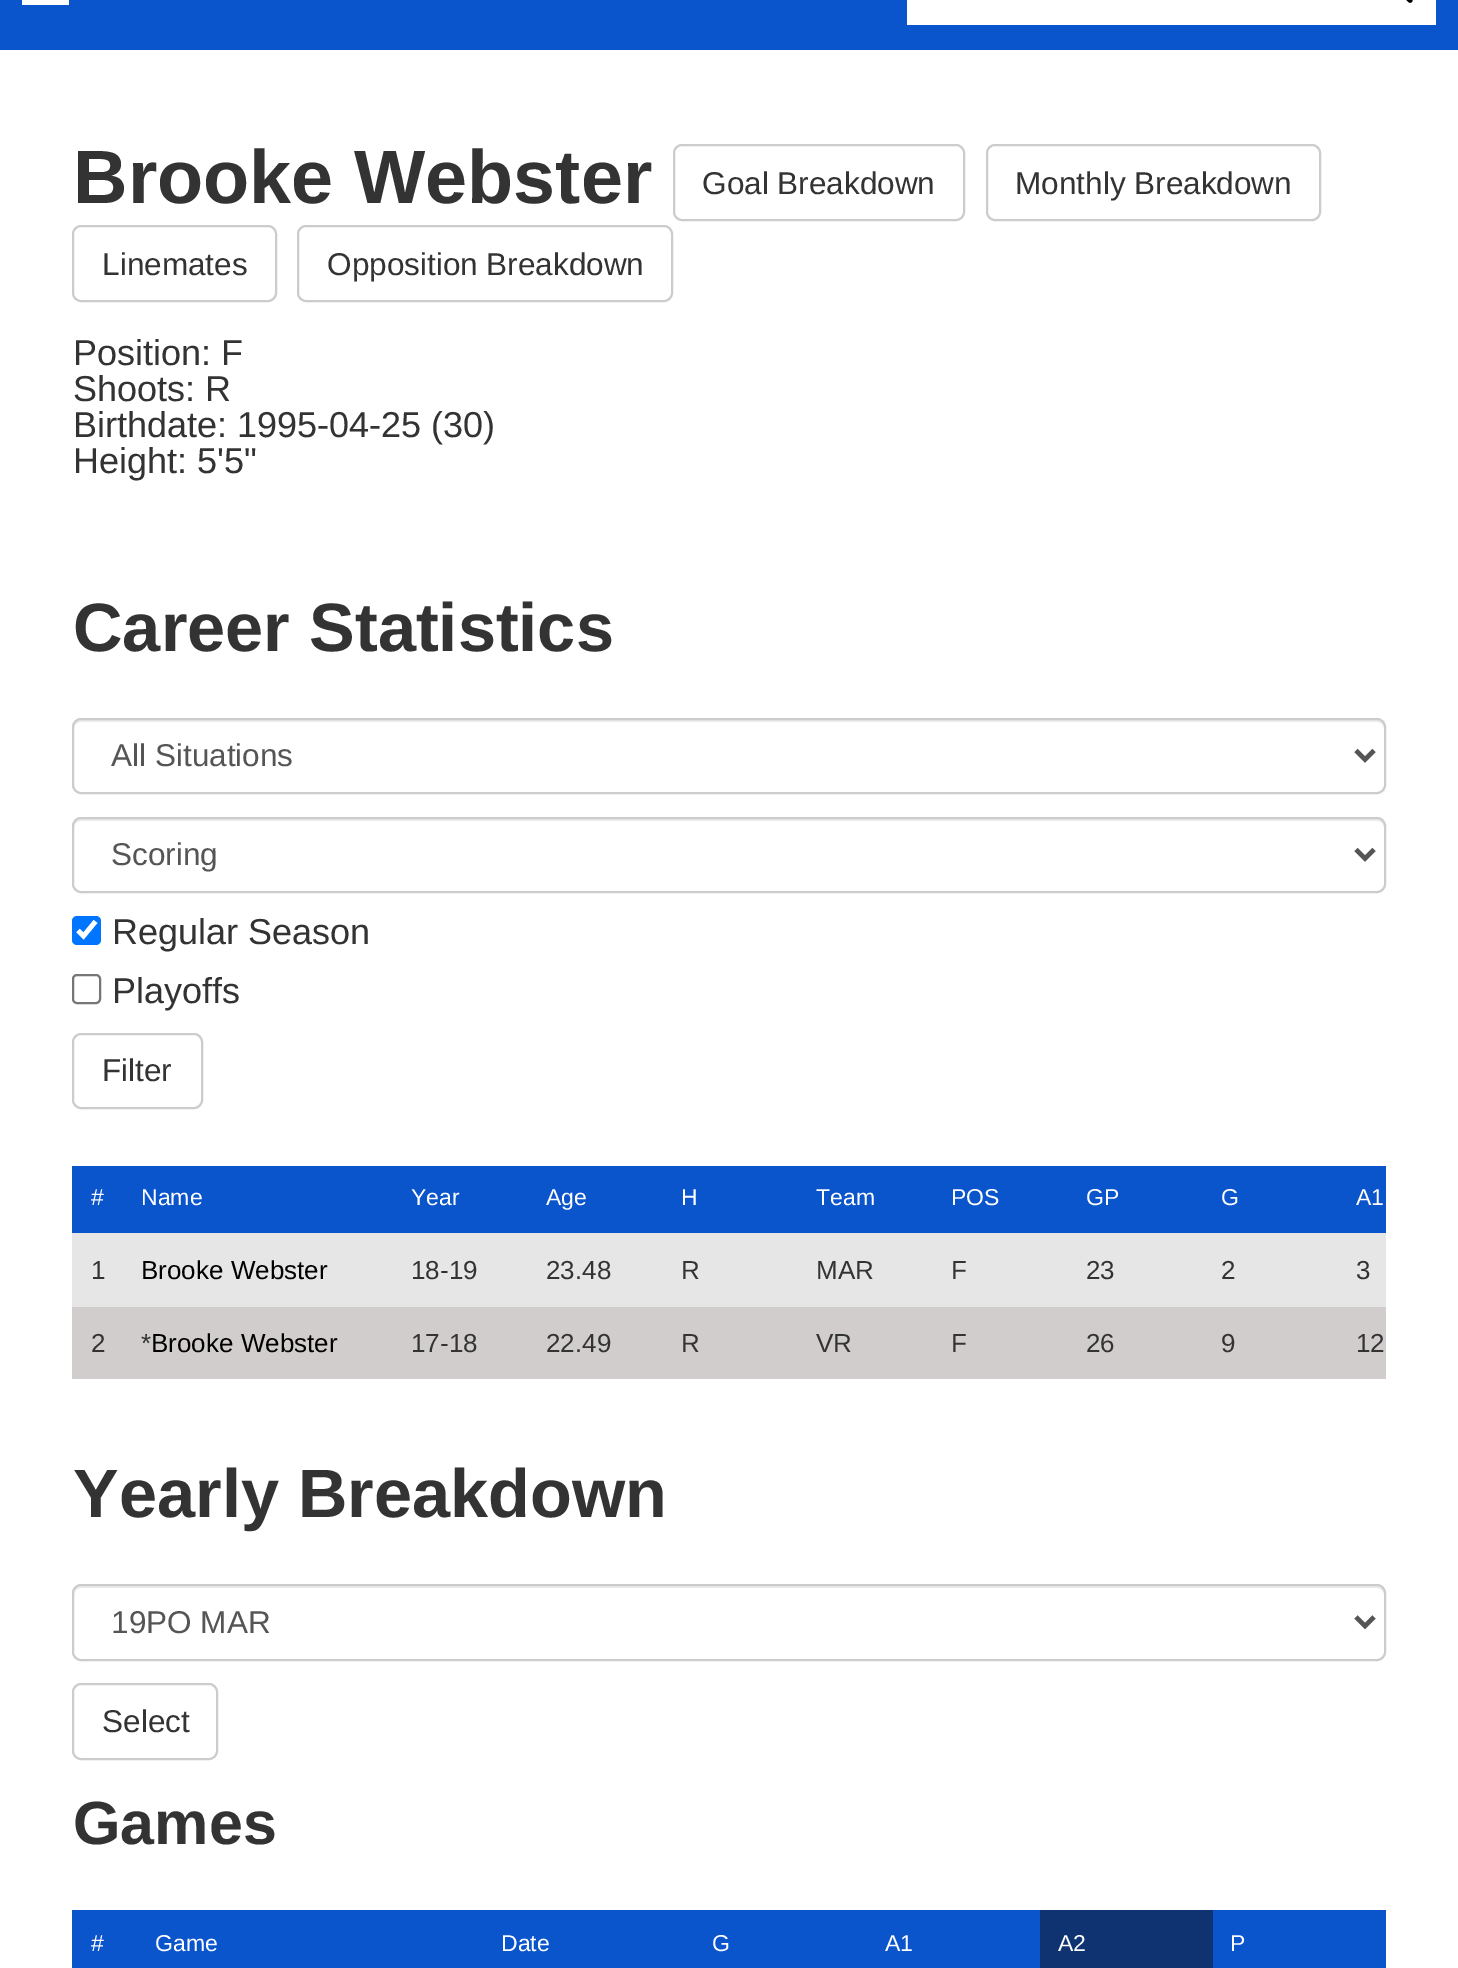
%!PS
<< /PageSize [1458 1968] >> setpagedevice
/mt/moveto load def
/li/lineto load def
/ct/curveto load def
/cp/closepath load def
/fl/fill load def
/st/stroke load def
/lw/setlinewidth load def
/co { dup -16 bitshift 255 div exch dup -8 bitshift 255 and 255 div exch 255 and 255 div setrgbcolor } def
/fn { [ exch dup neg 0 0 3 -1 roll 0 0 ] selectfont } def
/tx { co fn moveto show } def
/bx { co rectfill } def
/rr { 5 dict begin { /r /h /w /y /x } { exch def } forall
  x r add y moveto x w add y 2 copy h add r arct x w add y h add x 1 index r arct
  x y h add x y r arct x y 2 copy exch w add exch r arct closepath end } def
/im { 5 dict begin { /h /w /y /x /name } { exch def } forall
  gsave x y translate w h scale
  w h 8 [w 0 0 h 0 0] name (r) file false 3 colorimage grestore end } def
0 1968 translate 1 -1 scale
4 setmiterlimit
0 0 1458 1968 16#FFFFFF bx
0 0 1458 50 16#0A54CC bx
22 0 47 5 16#FFFFFF bx
907 0 529 25 16#FFFFFF bx
(media/1.raw) 1406 0 7 3 im
16#CCCCCC co
2 lw
674 145 290 75 8 rr st
987 145 333 75 8 rr st
73 226 203 75 8 rr st
298 226 374 75 8 rr st
16#ECECEC co
81 722 mt 1377 722 li 1381 722 1384 725 1384 729 ct 1384 727 li 1384 723 1381 720 1377 720 ct 81 720 li 77 720 74 723 74 727 ct 74 729 li 74 725 77 722 81 722 ct cp fl
16#CCCCCC co
73 719 1312 74 8 rr st
16#555555 co
4.5 lw
1356 750.5 mt 1365 759.5 li 1374 750.5 li st
16#ECECEC co
81 821 mt 1377 821 li 1381 821 1384 824 1384 828 ct 1384 826 li 1384 822 1381 819 1377 819 ct 81 819 li 77 819 74 822 74 826 ct 74 828 li 74 824 77 821 81 821 ct cp fl
16#CCCCCC co
2 lw
73 818 1312 74 8 rr st
16#555555 co
4.5 lw
1356 849.5 mt 1365 858.5 li 1374 849.5 li st
16#0075FF co
72 916 29 29 5 rr fl
16#FFFFFF co
4.7 lw
78 930.5 mt 83.5 936 li 95.5 921.5 li st
16#767676 co
2 lw
73 975 27 28 4 rr st
16#CCCCCC co
73 1034 129 74 8 rr st
72 1166 322 67 16#0A54CC bx
394 1166 992 67 16#0A54CC bx
72 1233 1314 74 16#E6E6E6 bx
72 1307 1314 72 16#D1CDCD bx
16#ECECEC co
81 1588 mt 1377 1588 li 1381 1588 1384 1592 1384 1595 ct 1384 1593 li 1384 1589 1381 1586 1377 1586 ct 81 1586 li 77 1586 74 1589 74 1593 ct 74 1595 li 74 1592 77 1588 81 1588 ct cp fl
16#CCCCCC co
73 1585 1312 75 8 rr st
16#555555 co
4.5 lw
1356 1617 mt 1365 1626 li 1374 1617 li st
16#CCCCCC co
2 lw
73 1684 144 75 8 rr st
72 1910 410 58 16#0A54CC bx
482 1910 558 58 16#0A54CC bx
1040 1910 173 58 16#0E3370 bx
1213 1910 173 58 16#0A54CC bx
(Brooke Webster) 73 203 /LiberationSans-Bold 75.5 16#333333 tx
(Goal Breakdown) 702 194 /LiberationSans-Regular 31.5 16#333333 tx
(Monthly Breakdown) 1015 194 /LiberationSans-Regular 31.5 16#333333 tx
(Linemates) 102 275 /LiberationSans-Regular 31.5 16#333333 tx
(Opposition Breakdown) 327 275 /LiberationSans-Regular 31.5 16#333333 tx
(Position: F) 73 365 /LiberationSans-Regular 36 16#333333 tx
(Shoots: R) 73 401 /LiberationSans-Regular 36 16#333333 tx
(Birthdate: 1995-04-25 \(30\)) 73 437 /LiberationSans-Regular 36 16#333333 tx
(Height: 5'5") 73 473 /LiberationSans-Regular 36 16#333333 tx
(Career Statistics) 73 651 /LiberationSans-Bold 68.5 16#333333 tx
(All Situations) 111 766 /LiberationSans-Regular 31.5 16#555555 tx
(Scoring) 111 865 /LiberationSans-Regular 31.5 16#555555 tx
(Regular Season) 112 944 /LiberationSans-Regular 36 16#333333 tx
(Playoffs) 112 1003 /LiberationSans-Regular 36 16#333333 tx
(Filter) 102 1081 /LiberationSans-Regular 31.5 16#333333 tx
(#) 91 1205 /LiberationSans-Regular 23 16#FFFFFF tx
(Name) 141 1205 /LiberationSans-Regular 23 16#FFFFFF tx
(Year) 411 1205 /LiberationSans-Regular 23 16#FFFFFF tx
(Age) 546 1205 /LiberationSans-Regular 23 16#FFFFFF tx
(H) 681 1205 /LiberationSans-Regular 23 16#FFFFFF tx
(Team) 816 1205 /LiberationSans-Regular 23 16#FFFFFF tx
(POS) 951 1205 /LiberationSans-Regular 23 16#FFFFFF tx
(GP) 1086 1205 /LiberationSans-Regular 23 16#FFFFFF tx
(G) 1221 1205 /LiberationSans-Regular 23 16#FFFFFF tx
(A1) 1356 1205 /LiberationSans-Regular 23 16#FFFFFF tx
(1) 91 1279 /LiberationSans-Regular 26 16#333333 tx
(Brooke Webster) 141 1279 /LiberationSans-Regular 26 16#000000 tx
(18-19) 411 1279 /LiberationSans-Regular 26 16#333333 tx
(23.48) 546 1279 /LiberationSans-Regular 26 16#333333 tx
(R) 681 1279 /LiberationSans-Regular 26 16#333333 tx
(MAR) 816 1279 /LiberationSans-Regular 26 16#333333 tx
(F) 951 1279 /LiberationSans-Regular 26 16#333333 tx
(23) 1086 1279 /LiberationSans-Regular 26 16#333333 tx
(2) 1221 1279 /LiberationSans-Regular 26 16#333333 tx
(3) 1356 1279 /LiberationSans-Regular 26 16#333333 tx
(2) 91 1352 /LiberationSans-Regular 26 16#333333 tx
(*) 141 1352 /LiberationSans-Regular 26 16#333333 tx
(Brooke Webster) 151 1352 /LiberationSans-Regular 26 16#000000 tx
(17-18) 411 1352 /LiberationSans-Regular 26 16#333333 tx
(22.49) 546 1352 /LiberationSans-Regular 26 16#333333 tx
(R) 681 1352 /LiberationSans-Regular 26 16#333333 tx
(VR) 816 1352 /LiberationSans-Regular 26 16#333333 tx
(F) 951 1352 /LiberationSans-Regular 26 16#333333 tx
(26) 1086 1352 /LiberationSans-Regular 26 16#333333 tx
(9) 1221 1352 /LiberationSans-Regular 26 16#333333 tx
(12) 1356 1352 /LiberationSans-Regular 26 16#333333 tx
(Yearly Breakdown) 73 1517 /LiberationSans-Bold 68.5 16#333333 tx
(19PO MAR) 111 1633 /LiberationSans-Regular 31.5 16#555555 tx
(Select) 102 1732 /LiberationSans-Regular 31.5 16#333333 tx
(Games) 73 1844 /LiberationSans-Bold 61 16#333333 tx
(#) 91 1951 /LiberationSans-Regular 23 16#FFFFFF tx
(Game) 155 1951 /LiberationSans-Regular 23 16#FFFFFF tx
(Date) 501 1951 /LiberationSans-Regular 23 16#FFFFFF tx
(G) 712 1951 /LiberationSans-Regular 23 16#FFFFFF tx
(A1) 885 1951 /LiberationSans-Regular 23 16#FFFFFF tx
(A2) 1058 1951 /LiberationSans-Regular 23 16#FFFFFF tx
(P) 1230 1951 /LiberationSans-Regular 23 16#FFFFFF tx
showpage
